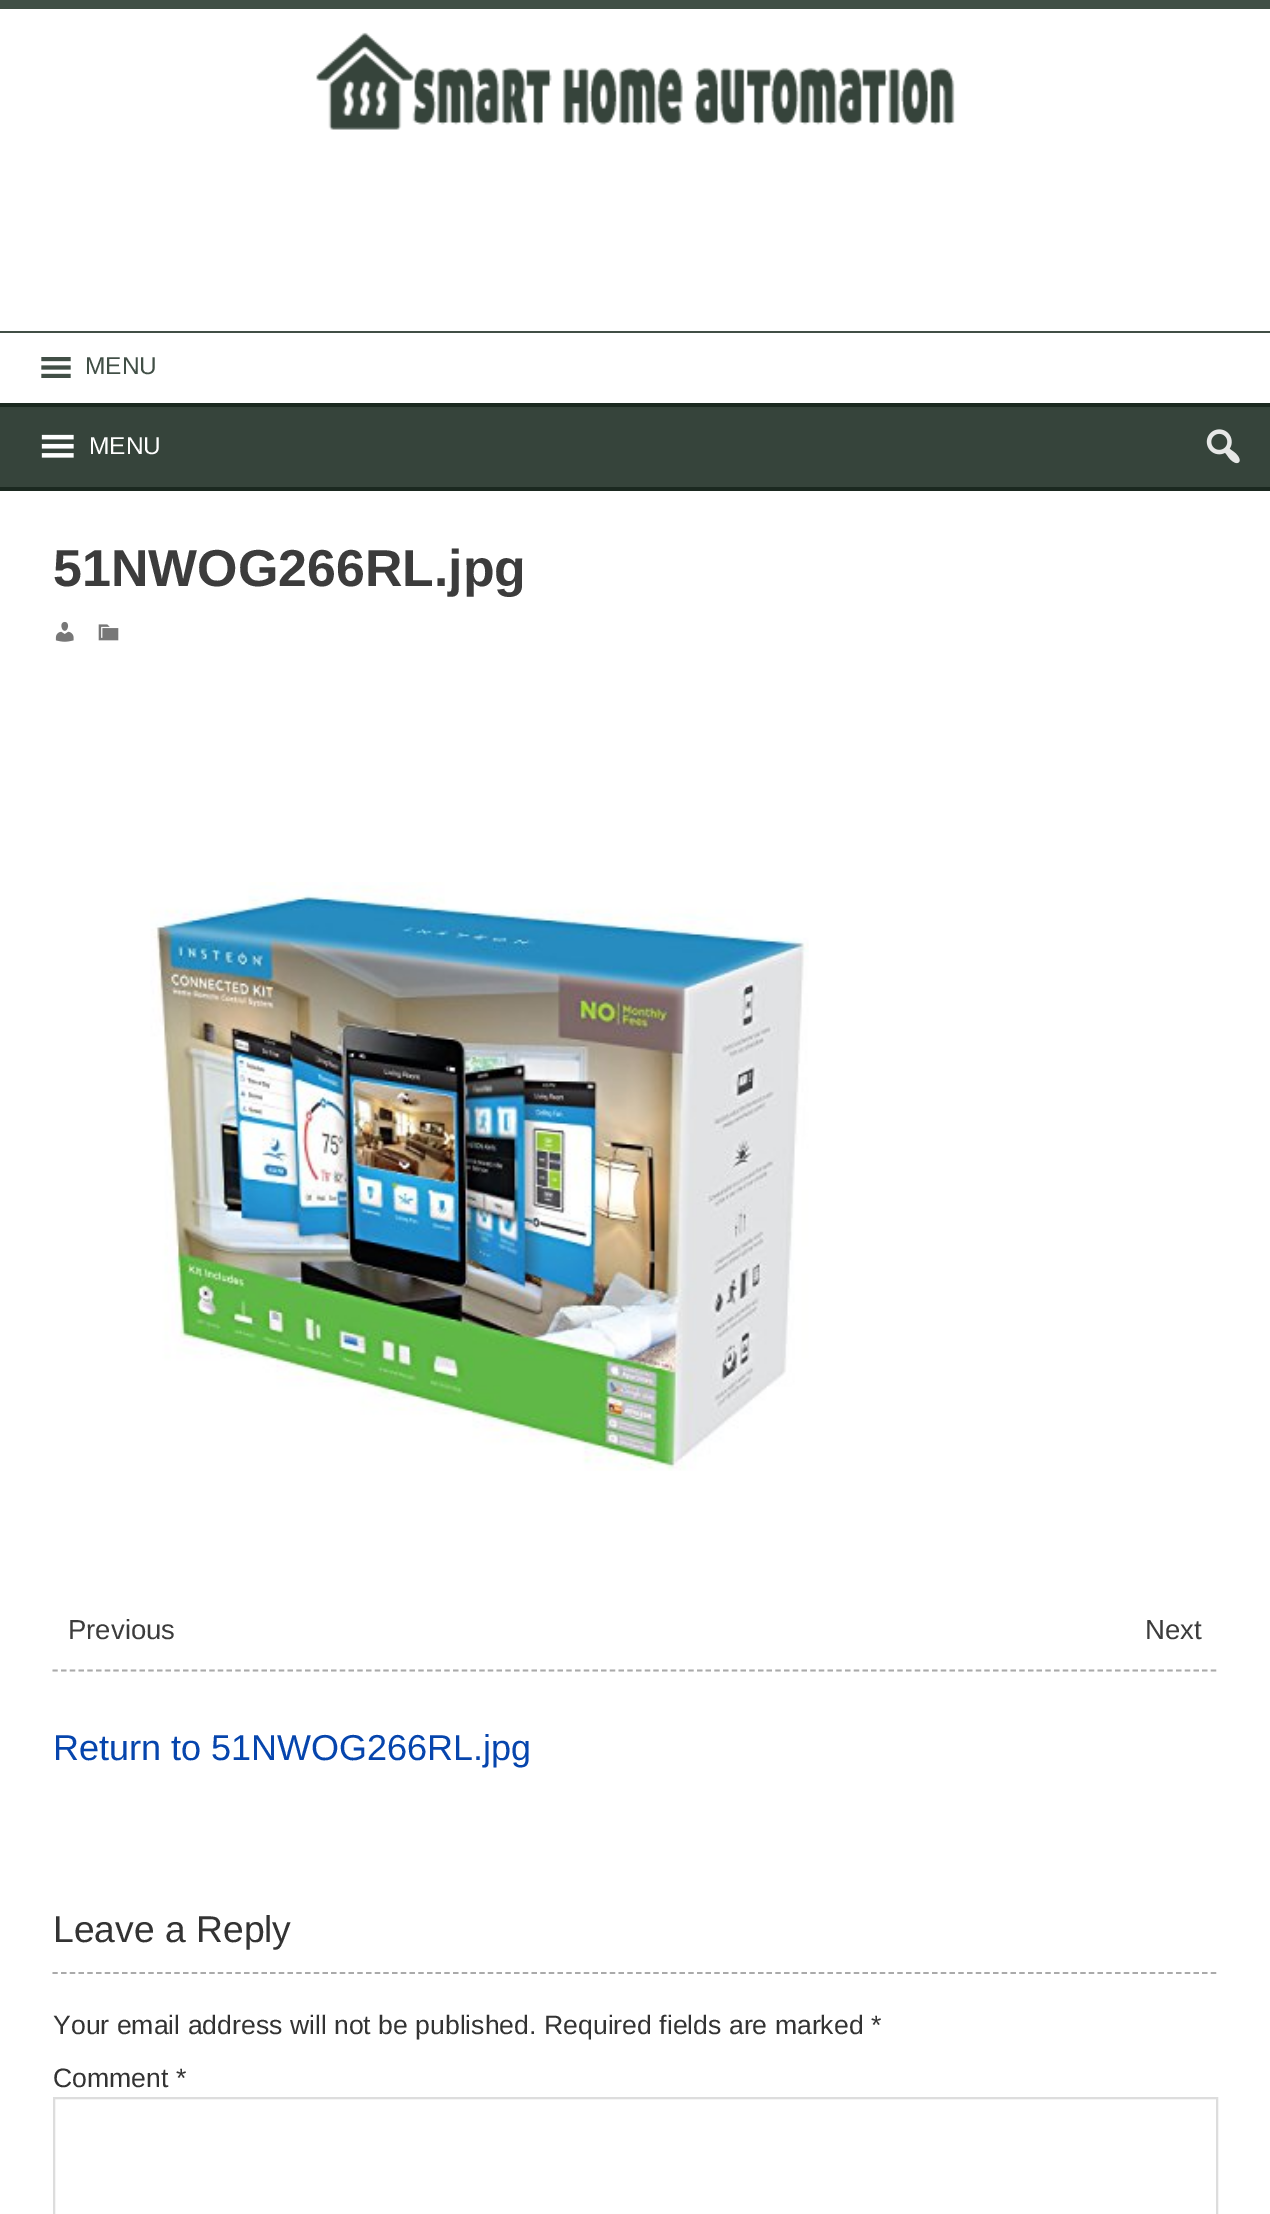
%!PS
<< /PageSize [1270 2214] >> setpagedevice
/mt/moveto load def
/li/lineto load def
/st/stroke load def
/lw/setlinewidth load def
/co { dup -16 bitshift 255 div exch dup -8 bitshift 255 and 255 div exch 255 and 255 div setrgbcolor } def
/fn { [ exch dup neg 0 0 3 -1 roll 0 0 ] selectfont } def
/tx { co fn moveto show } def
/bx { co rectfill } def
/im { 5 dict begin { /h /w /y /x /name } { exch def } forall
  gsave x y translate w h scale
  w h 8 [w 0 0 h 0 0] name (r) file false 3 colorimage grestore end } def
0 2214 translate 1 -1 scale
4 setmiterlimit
0 0 1270 2214 16#FFFFFF bx
0 0 1270 9 16#414F46 bx
(media/1.raw) 316 32 639 98 im
0 331 1270 2 16#414F46 bx
(media/2.raw) 41 357 30 21 im
0 407 1270 80 16#36443B bx
0 403 1270 4 16#1B2920 bx
0 487 1270 4 16#1B2920 bx
(media/3.raw) 41 434 33 24 im
(media/4.raw) 1206 429 34 35 im
(media/5.raw) 55 621 19 21 im
(media/6.raw) 98 624 21 17 im
(media/7.raw) 150 882 659 589 im
16#AAAAAA co
1.8 lw
[5.25 3.46] 0 setdash
52.5 1670.5 mt 1218 1670.5 li st
52.5 1973 mt 1218 1973 li st
16#DDDDDD co
2 lw
[] 0 setdash
54 2098 1163 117 rectstroke
(MENU) 85 374 /LiberationSans-Regular 24.5 16#414F46 tx
(MENU) 89 454 /LiberationSans-Regular 24.5 16#FFFFFF tx
(51NWOG266RL.jpg) 53 586 /LiberationSans-Bold 51.9 16#3C3C3C tx
(Previous) 68 1639 /LiberationSans-Regular 27.5 16#3C3C3C tx
(Next) 1145 1639 /LiberationSans-Regular 27.5 16#3C3C3C tx
(Return to 51NWOG266RL.jpg) 53 1760 /LiberationSans-Regular 36 16#0645AD tx
(Leave a Reply) 53 1942 /LiberationSans-Regular 37.25 16#333333 tx
(Your email address will not be published.) 53 2034 /LiberationSans-Regular 26.6 16#333333 tx
(Required fields are marked *) 544 2034 /LiberationSans-Regular 26.6 16#333333 tx
(Comment *) 53 2087 /LiberationSans-Regular 26.6 16#333333 tx
showpage
